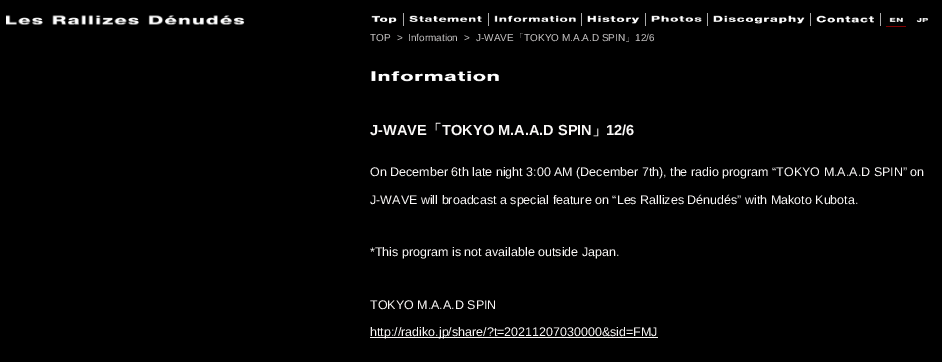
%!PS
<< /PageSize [942 362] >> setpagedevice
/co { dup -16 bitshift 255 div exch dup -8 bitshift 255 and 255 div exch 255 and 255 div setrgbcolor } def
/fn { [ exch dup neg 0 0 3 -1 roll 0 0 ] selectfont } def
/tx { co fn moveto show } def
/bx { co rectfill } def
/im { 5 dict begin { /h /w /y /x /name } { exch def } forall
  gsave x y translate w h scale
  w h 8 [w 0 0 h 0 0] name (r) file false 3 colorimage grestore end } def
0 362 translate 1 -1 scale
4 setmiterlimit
0 0 942 362 16#000000 bx
(media/1.raw) 6 15 239 10 im
403 13 1 13 16#AAAAAA bx
(media/2.raw) 371 15 26 9 im
488 13 1 13 16#AAAAAA bx
(media/3.raw) 409 15 73 7 im
581 13 1 13 16#AAAAAA bx
(media/4.raw) 494 15 82 7 im
645 13 1 13 16#AAAAAA bx
(media/5.raw) 587 15 53 9 im
707 13 1 13 16#AAAAAA bx
(media/6.raw) 651 15 51 7 im
810 13 1 13 16#AAAAAA bx
(media/7.raw) 713 15 92 9 im
880 13 1 13 16#AAAAAA bx
(media/8.raw) 816 15 58 8 im
886 26 20 1 16#800000 bx
(media/9.raw) 889 17 14 5 im
(media/10.raw) 916 18 13 5 im
(media/11.raw) 371 71 128 11 im
370 337 288 1 16#FAF8F7 bx
(TOP) 370 41 /LiberationSans-Regular 10 16#C8C6C6 tx
(>) 397 41 /LiberationSans-Regular 10 16#C8C6C6 tx
(Information) 408 41 /LiberationSans-Regular 10 16#C8C6C6 tx
(>) 464 41 /LiberationSans-Regular 10 16#C8C6C6 tx
(J-WAVE) 476 41 /LiberationSans-Regular 10 16#C8C6C6 tx
(「) 514 41 /WenQuanYiZenHei-Medium 10 16#C8C6C6 tx
(TOKYO M.A.A.D SPIN) 524 41 /LiberationSans-Regular 10 16#C8C6C6 tx
(」) 625 41 /WenQuanYiZenHei-Medium 10 16#C8C6C6 tx
(12/6) 635 41 /LiberationSans-Regular 10 16#C8C6C6 tx
(J-WAVE) 370 135 /LiberationSans-Bold 14.6 16#FAF8F7 tx
(「) 427 135 /WenQuanYiZenHei-Bold 14.6 16#FAF8F7 tx
(TOKYO M.A.A.D SPIN) 442 135 /LiberationSans-Bold 14.6 16#FAF8F7 tx
(」) 592 135 /WenQuanYiZenHei-Bold 14.6 16#FAF8F7 tx
(12/6) 606 135 /LiberationSans-Bold 14.6 16#FAF8F7 tx
(On December 6th late night 3:00 AM \(December 7th\), the radio program “TOKYO M.A.A.D SPIN” on) 370 176 /LiberationSans-Regular 12.5 16#FAF8F7 tx
(J-WAVE will broadcast a special feature on “Les Rallizes Dénudés” with Makoto Kubota.) 370 204 /LiberationSans-Regular 12.5 16#FAF8F7 tx
(*This program is not available outside Japan.) 370 256 /LiberationSans-Regular 12.5 16#FAF8F7 tx
(TOKYO M.A.A.D SPIN) 370 309 /LiberationSans-Regular 12.5 16#FAF8F7 tx
(http://radiko.jp/share/?t=20211207030000&sid=FMJ) 370 336 /LiberationSans-Regular 12.5 16#FAF8F7 tx
showpage
